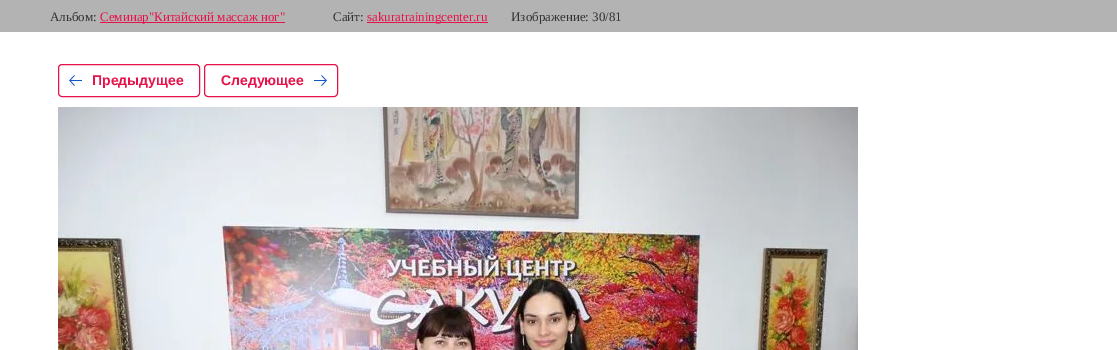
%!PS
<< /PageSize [1117 350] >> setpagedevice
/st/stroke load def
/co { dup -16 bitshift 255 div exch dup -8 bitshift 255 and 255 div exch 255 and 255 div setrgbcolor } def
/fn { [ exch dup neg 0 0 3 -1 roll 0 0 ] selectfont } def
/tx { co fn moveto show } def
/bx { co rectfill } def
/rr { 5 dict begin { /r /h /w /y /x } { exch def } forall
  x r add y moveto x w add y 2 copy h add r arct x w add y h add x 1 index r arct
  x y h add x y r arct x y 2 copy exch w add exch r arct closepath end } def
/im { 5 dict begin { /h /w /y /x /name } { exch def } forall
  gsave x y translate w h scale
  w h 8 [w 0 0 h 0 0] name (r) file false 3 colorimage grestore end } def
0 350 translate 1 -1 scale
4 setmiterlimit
0 0 1117 350 16#FFFFFF bx
0 0 1117 32 16#B3B3B3 bx
100 22 185 1 16#E61249 bx
367 22 121 1 16#E61249 bx
58.5 64.5 141 32 3.5 rr st
(media/1.raw) 69 75 13 11 im
204.5 64.5 133 32 3.5 rr st
(media/2.raw) 314 75 13 11 im
(media/3.raw) 58 107 800 243 im
(Альбом:) 50 21 /LiberationSerif-Regular 13 16#333333 tx
(Семинар"Китайский массаж ног") 100 21 /LiberationSerif-Regular 13 16#E61249 tx
(Сайт:) 333 21 /LiberationSerif-Regular 13 16#333333 tx
(sakuratrainingcenter.ru) 367 21 /LiberationSerif-Regular 13 16#E61249 tx
(Изображение: 30/81) 511 21 /LiberationSerif-Regular 13 16#333333 tx
(Предыдущее) 92 85 /LiberationSans-Bold 14 16#E61249 tx
(Следующее) 221 85 /LiberationSans-Bold 14 16#E61249 tx
showpage
